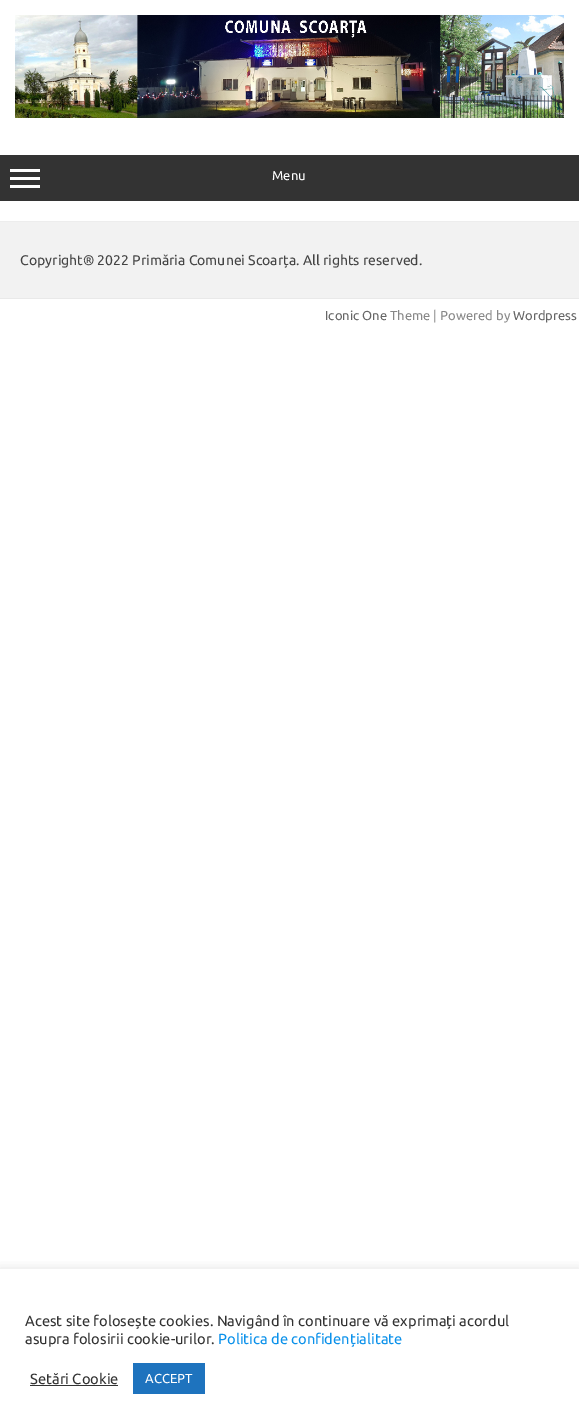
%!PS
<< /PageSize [579 1424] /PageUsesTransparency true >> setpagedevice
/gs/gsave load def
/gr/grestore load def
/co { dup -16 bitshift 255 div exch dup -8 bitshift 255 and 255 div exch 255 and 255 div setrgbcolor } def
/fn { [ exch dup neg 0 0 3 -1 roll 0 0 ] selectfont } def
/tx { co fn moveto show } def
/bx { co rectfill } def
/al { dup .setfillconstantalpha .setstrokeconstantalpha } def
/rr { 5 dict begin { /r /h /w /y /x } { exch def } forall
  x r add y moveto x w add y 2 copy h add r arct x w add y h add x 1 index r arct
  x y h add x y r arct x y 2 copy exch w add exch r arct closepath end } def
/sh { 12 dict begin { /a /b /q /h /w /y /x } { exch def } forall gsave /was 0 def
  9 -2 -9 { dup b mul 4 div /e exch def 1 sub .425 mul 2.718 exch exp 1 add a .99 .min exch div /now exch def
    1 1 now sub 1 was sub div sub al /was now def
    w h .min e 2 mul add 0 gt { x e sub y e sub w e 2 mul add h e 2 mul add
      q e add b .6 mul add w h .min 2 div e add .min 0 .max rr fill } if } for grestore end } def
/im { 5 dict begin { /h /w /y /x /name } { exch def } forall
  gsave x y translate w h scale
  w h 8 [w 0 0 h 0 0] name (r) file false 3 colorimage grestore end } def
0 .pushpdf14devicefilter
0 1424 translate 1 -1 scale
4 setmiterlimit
0 0 579 1424 16#FFFFFF bx
(media/1.raw) 15 15 549 103 im
0 155 579 46 16#333333 bx
10 169 30 3 16#FFFFFF bx
10 177 30 3 16#FFFFFF bx
10 185 30 3 16#FFFFFF bx
0 222 579 76 16#F2F2F2 bx
0 221 579 1 16#EDEDED bx
0 298 579 1 16#E9E9E9 bx
gs
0 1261 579 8 rectclip
16#ACABAB co
0 1268 579 155 0 5 .3 sh
gr
30 1385 88 1 16#333333 bx
133 1363 72 31 16#1E73BE bx
(Menu) 272 180 /Ubuntu-Regular 13 16#FFFFFF tx
(Copyright® 2022 Primăria Comunei Scoarța. All rights reserved.) 20 265 /Ubuntu-Regular 14 16#444444 tx
(Iconic One) 325 320 /Ubuntu-Regular 13 16#666666 tx
(Theme | Powered by) 390 320 /Ubuntu-Regular 13 16#888888 tx
(Wordpress) 513 320 /Ubuntu-Regular 13 16#666666 tx
(Acest site folosește cookies. Navigând în continuare vă exprimați acordul) 25 1326 /Ubuntu-Regular 14.7 16#333333 tx
(asupra folosirii cookie-urilor.) 25 1344 /Ubuntu-Regular 14.7 16#333333 tx
(Politica de confidențialitate) 218 1344 /Ubuntu-Regular 14.7 16#0B91EA tx
(Setări Cookie) 30 1384 /Ubuntu-Regular 14.7 16#333333 tx
(ACCEPT) 145 1383 /Ubuntu-Regular 13 16#FFFFFF tx
.poppdf14devicefilter showpage
